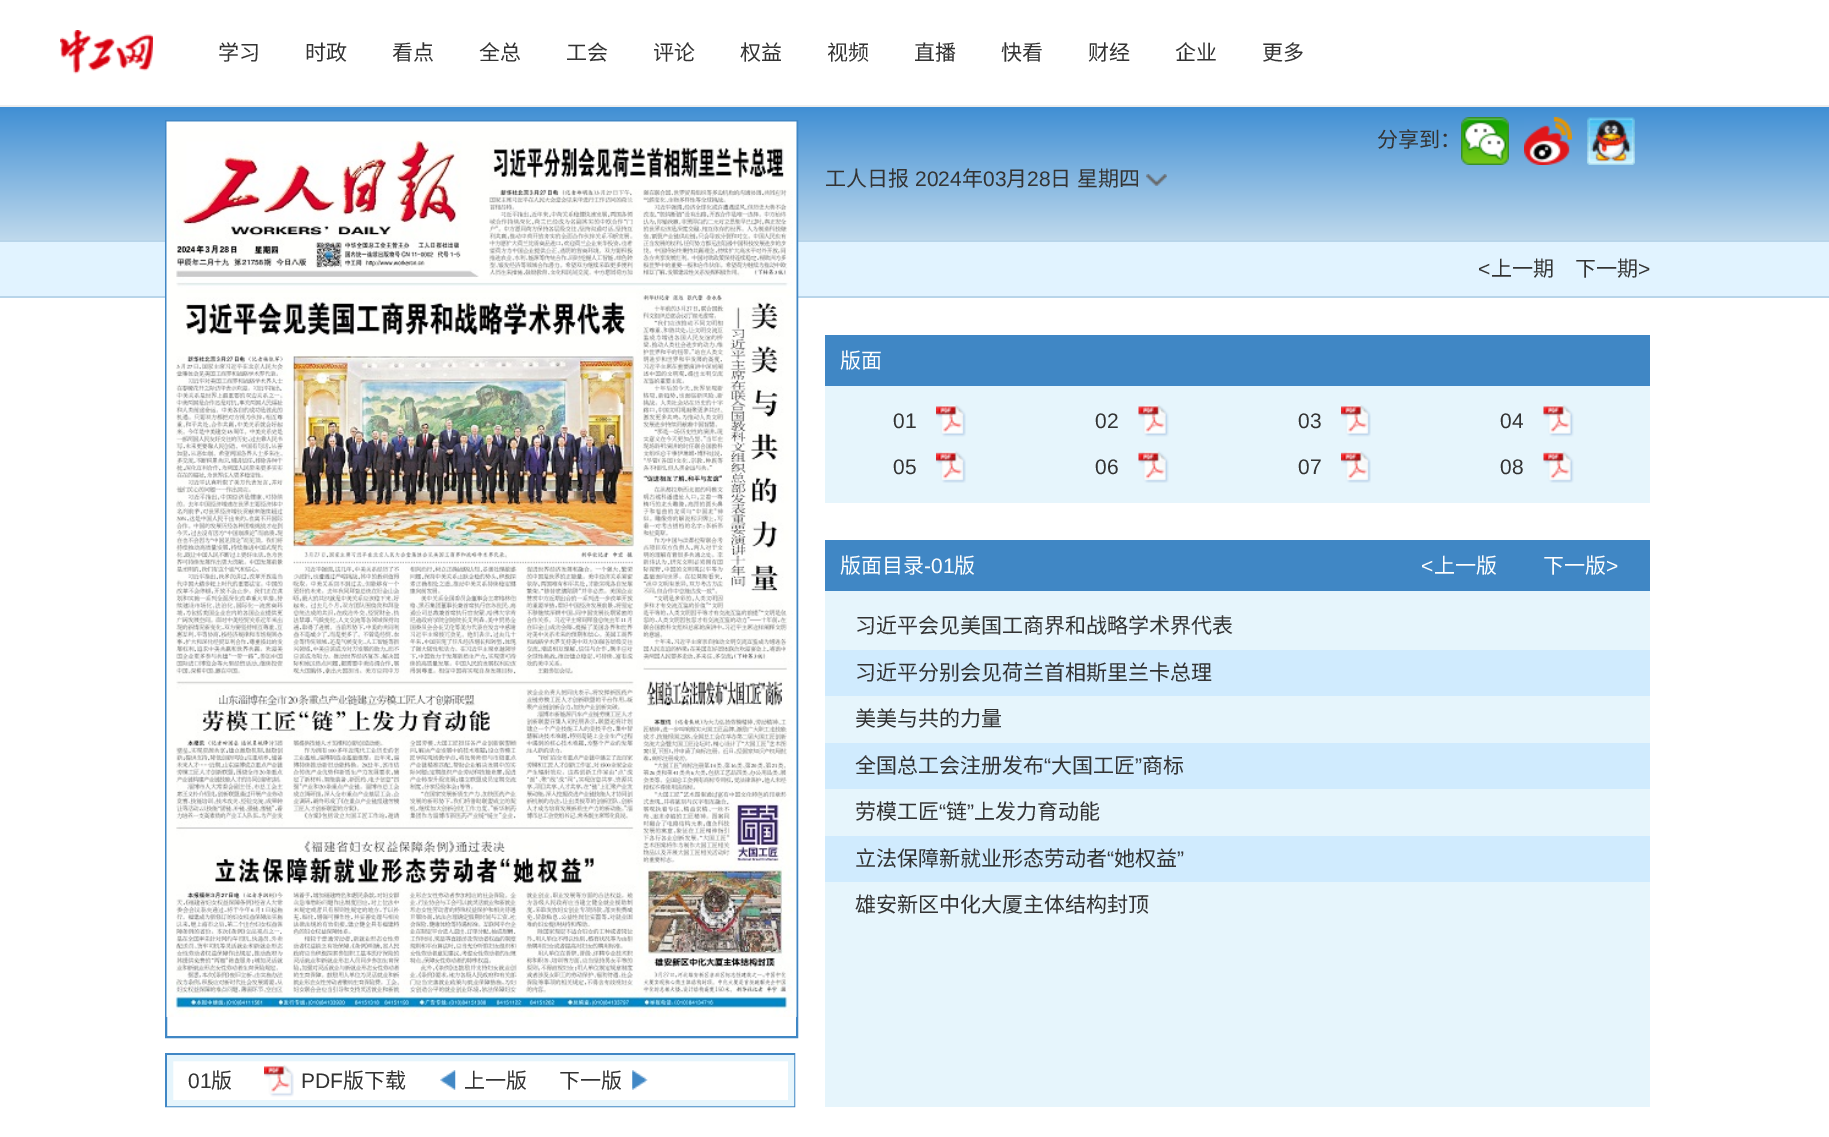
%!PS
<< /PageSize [1829 1137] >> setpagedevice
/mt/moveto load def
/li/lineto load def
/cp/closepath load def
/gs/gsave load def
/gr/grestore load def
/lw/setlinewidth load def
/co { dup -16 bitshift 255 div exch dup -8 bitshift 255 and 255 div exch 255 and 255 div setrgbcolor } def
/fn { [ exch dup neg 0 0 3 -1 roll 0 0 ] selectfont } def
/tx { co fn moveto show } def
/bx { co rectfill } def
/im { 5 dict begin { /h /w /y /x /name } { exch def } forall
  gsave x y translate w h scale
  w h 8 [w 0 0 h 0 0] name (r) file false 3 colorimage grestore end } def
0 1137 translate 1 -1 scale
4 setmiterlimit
0 0 1829 1137 16#FFFFFF bx
0 105 1829 2 16#EEEEEE bx
(media/1.raw) 60 30 93 44 im
gs 0 107 mt 1829 107 li 1829 240 li 0 240 li cp clip newpath
<< /ShadingType 2 /ColorSpace /DeviceRGB /Coords [915 106 915 240] /Extend [true true] /Function << /FunctionType 2 /Domain [0 1] /C0 [.247 .557 .831] /C1 [.749 .851 .925] /N 1 >> >> shfill gr
0 240 1829 2 16#B8D5EA bx
(media/2.raw) 1461 117 48 48 im
(media/3.raw) 1524 117 48 48 im
(media/4.raw) 1587 117 48 48 im
(media/5.raw) 1146 174 21 12 im
0 242 1829 54 16#E1F3FF bx
0 296 1829 2 16#B8D5EA bx
825 335 825 51 16#4087C5 bx
825 386 825 117 16#E6F5FC bx
(media/6.raw) 936 405 30 32 im
(media/7.raw) 1138 405 31 32 im
(media/8.raw) 1341 405 30 32 im
(media/9.raw) 1543 405 31 32 im
(media/10.raw) 936 451 30 32 im
(media/11.raw) 1138 451 31 32 im
(media/12.raw) 1341 451 30 32 im
(media/13.raw) 1543 451 31 32 im
825 540 825 51 16#4087C5 bx
825 591 825 516 16#E6F5FC bx
825 650 825 46 16#D0EBFE bx
825 743 825 46 16#D0EBFE bx
825 836 825 46 16#D0EBFE bx
16#4087C5 co
2 lw
166 121 631 916 rectstroke
(media/14.raw) 166 121 631 896 im
166 1054 628 52 rectstroke
16#E6F5FC co
6 lw
170 1058 621 45 rectstroke
(media/15.raw) 264 1065 30 32 im
(media/16.raw) 440 1070 16 20 im
(media/17.raw) 632 1070 16 20 im
(学习) 218 60 /NotoSansCJKSC-Regular 21 16#333333 tx
(时政) 305 60 /NotoSansCJKSC-Regular 21 16#333333 tx
(看点) 392 60 /NotoSansCJKSC-Regular 21 16#333333 tx
(全总) 479 60 /NotoSansCJKSC-Regular 21 16#333333 tx
(工会) 566 60 /NotoSansCJKSC-Regular 21 16#333333 tx
(评论) 653 60 /NotoSansCJKSC-Regular 21 16#333333 tx
(权益) 740 60 /NotoSansCJKSC-Regular 21 16#333333 tx
(视频) 827 60 /NotoSansCJKSC-Regular 21 16#333333 tx
(直播) 914 60 /NotoSansCJKSC-Regular 21 16#333333 tx
(快看) 1001 60 /NotoSansCJKSC-Regular 21 16#333333 tx
(财经) 1088 60 /NotoSansCJKSC-Regular 21 16#333333 tx
(企业) 1175 60 /NotoSansCJKSC-Regular 21 16#333333 tx
(更多) 1262 60 /NotoSansCJKSC-Regular 21 16#333333 tx
(分享到：) 1377 147 /NotoSansCJKSC-Regular 21 16#333333 tx
(工人日报) 825 186 /NotoSansCJKSC-Regular 21 16#333333 tx
(2024) 915 186 /LiberationSans-Regular 21 16#333333 tx
(年) 962 186 /NotoSansCJKSC-Regular 21 16#333333 tx
(03) 983 186 /LiberationSans-Regular 21 16#333333 tx
(月) 1006 186 /NotoSansCJKSC-Regular 21 16#333333 tx
(28) 1027 186 /LiberationSans-Regular 21 16#333333 tx
(日) 1050 186 /NotoSansCJKSC-Regular 21 16#333333 tx
(星期四) 1077 186 /NotoSansCJKSC-Regular 21 16#333333 tx
(<) 1478 276 /LiberationSans-Regular 21 16#333333 tx
(上一期) 1491 276 /NotoSansCJKSC-Regular 21 16#333333 tx
(下一期) 1575 276 /NotoSansCJKSC-Regular 21 16#333333 tx
(>) 1638 276 /LiberationSans-Regular 21 16#333333 tx
(版面) 840 368 /NotoSansCJKSC-Regular 21 16#FFFFFF tx
(01) 893 428 /LiberationSans-Regular 21 16#333333 tx
(02) 1095 428 /LiberationSans-Regular 21 16#333333 tx
(03) 1298 428 /LiberationSans-Regular 21 16#333333 tx
(04) 1500 428 /LiberationSans-Regular 21 16#333333 tx
(05) 893 474 /LiberationSans-Regular 21 16#333333 tx
(06) 1095 474 /LiberationSans-Regular 21 16#333333 tx
(07) 1298 474 /LiberationSans-Regular 21 16#333333 tx
(08) 1500 474 /LiberationSans-Regular 21 16#333333 tx
(版面目录) 840 573 /NotoSansCJKSC-Regular 21 16#FFFFFF tx
(-01) 924 573 /LiberationSans-Regular 21 16#FFFFFF tx
(版) 954 573 /NotoSansCJKSC-Regular 21 16#FFFFFF tx
(<) 1421 573 /LiberationSans-Regular 21 16#FFFFFF tx
(上一版) 1434 573 /NotoSansCJKSC-Regular 21 16#FFFFFF tx
(下一版) 1543 573 /NotoSansCJKSC-Regular 21 16#FFFFFF tx
(>) 1606 573 /LiberationSans-Regular 21 16#FFFFFF tx
(习近平会见美国工商界和战略学术界代表) 855 633 /NotoSansCJKSC-Regular 21 16#333333 tx
(习近平分别会见荷兰首相斯里兰卡总理) 855 680 /NotoSansCJKSC-Regular 21 16#333333 tx
(美美与共的力量) 855 726 /NotoSansCJKSC-Regular 21 16#333333 tx
(全国总工会注册发布) 855 773 /NotoSansCJKSC-Regular 21 16#333333 tx
(“) 1044 773 /LiberationSans-Regular 21 16#333333 tx
(大国工匠) 1051 773 /NotoSansCJKSC-Regular 21 16#333333 tx
(”) 1135 773 /LiberationSans-Regular 21 16#333333 tx
(商标) 1142 773 /NotoSansCJKSC-Regular 21 16#333333 tx
(劳模工匠) 855 819 /NotoSansCJKSC-Regular 21 16#333333 tx
(“) 939 819 /LiberationSans-Regular 21 16#333333 tx
(链) 946 819 /NotoSansCJKSC-Regular 21 16#333333 tx
(”) 967 819 /LiberationSans-Regular 21 16#333333 tx
(上发力育动能) 974 819 /NotoSansCJKSC-Regular 21 16#333333 tx
(立法保障新就业形态劳动者) 855 866 /NotoSansCJKSC-Regular 21 16#333333 tx
(“) 1107 866 /LiberationSans-Regular 21 16#333333 tx
(她权益) 1114 866 /NotoSansCJKSC-Regular 21 16#333333 tx
(”) 1177 866 /LiberationSans-Regular 21 16#333333 tx
(雄安新区中化大厦主体结构封顶) 855 912 /NotoSansCJKSC-Regular 21 16#333333 tx
(01) 188 1088 /LiberationSans-Regular 21 16#333333 tx
(版) 211 1088 /NotoSansCJKSC-Regular 21 16#333333 tx
(PDF) 301 1088 /LiberationSans-Regular 21 16#333333 tx
(版下载) 343 1088 /NotoSansCJKSC-Regular 21 16#333333 tx
(上一版) 464 1088 /NotoSansCJKSC-Regular 21 16#333333 tx
(下一版) 559 1088 /NotoSansCJKSC-Regular 21 16#333333 tx
showpage
